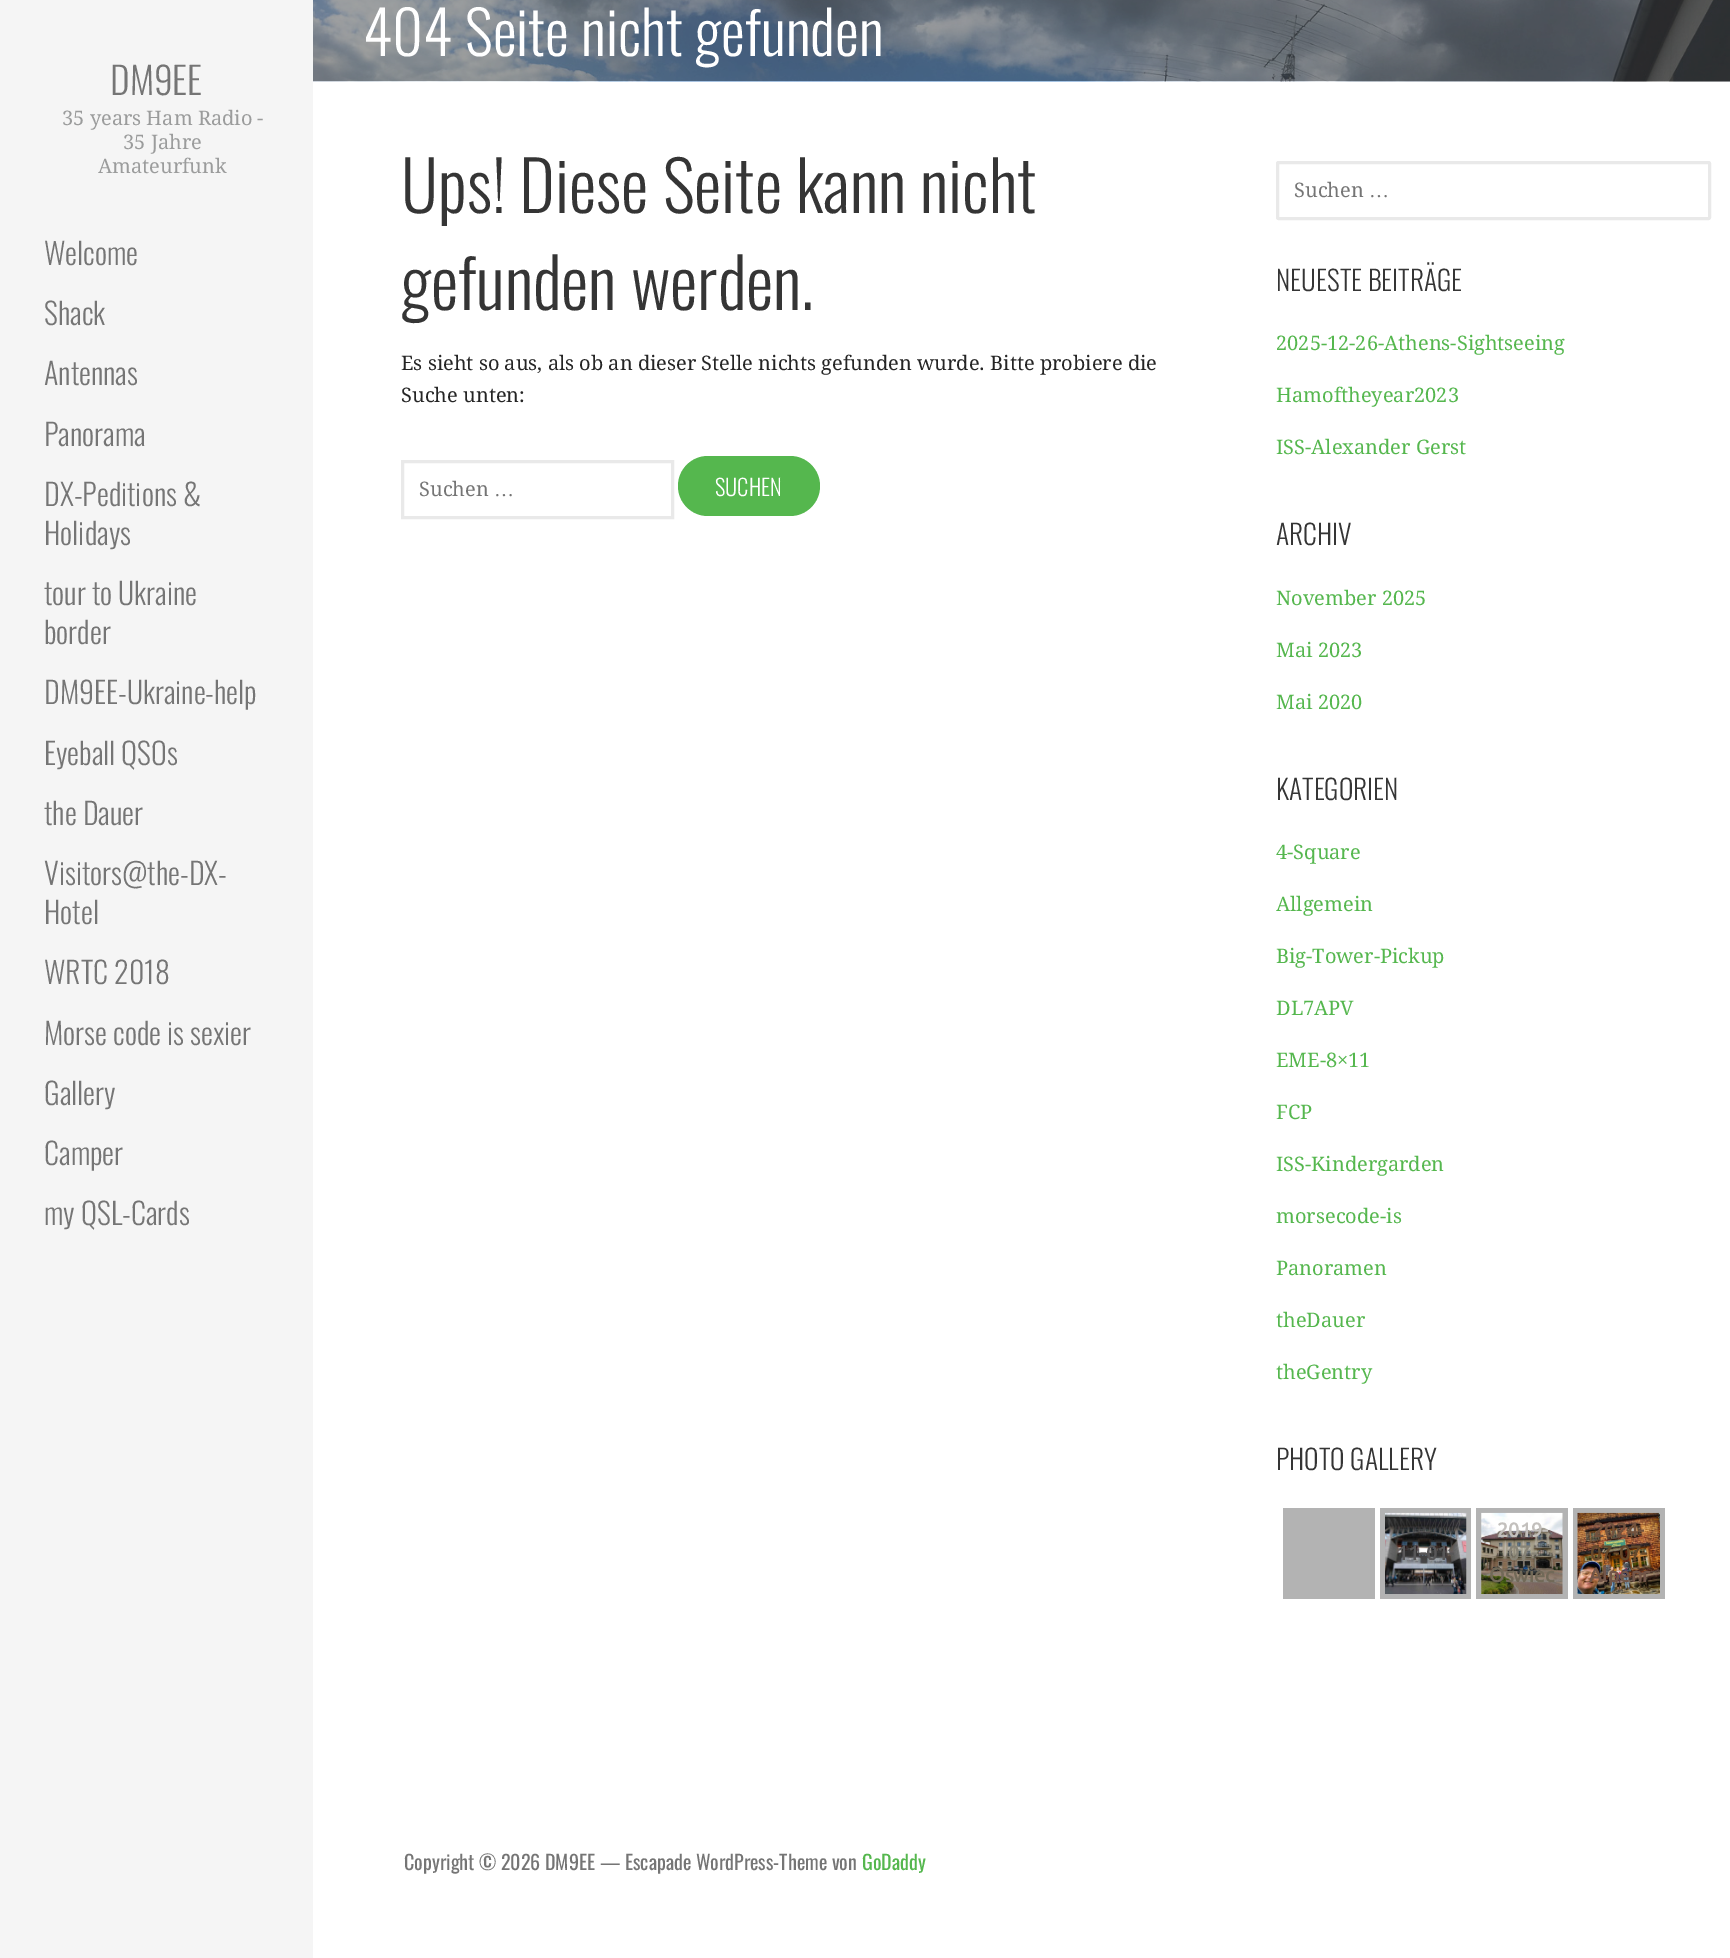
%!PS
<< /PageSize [1730 1958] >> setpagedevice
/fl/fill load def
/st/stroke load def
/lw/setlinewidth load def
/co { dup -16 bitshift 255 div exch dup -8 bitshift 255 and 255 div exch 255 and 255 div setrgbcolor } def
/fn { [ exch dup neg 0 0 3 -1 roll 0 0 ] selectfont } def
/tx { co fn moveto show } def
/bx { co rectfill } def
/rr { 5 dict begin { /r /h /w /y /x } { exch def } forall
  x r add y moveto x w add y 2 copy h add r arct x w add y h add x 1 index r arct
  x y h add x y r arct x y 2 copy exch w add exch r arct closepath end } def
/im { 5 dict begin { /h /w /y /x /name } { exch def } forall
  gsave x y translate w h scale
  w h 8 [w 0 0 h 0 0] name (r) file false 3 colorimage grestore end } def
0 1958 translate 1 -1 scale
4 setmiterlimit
0 0 1730 1958 16#FFFFFF bx
(media/1.raw) 313 0 1417 82 im
0 0 313 1958 16#F5F5F5 bx
16#E9E9E9 co
3 lw
402.5 461.5 270 56 rectstroke
16#55B74E co
678 456 142 60 30 rr fl
16#E9E9E9 co
1277.5 162.5 432 56 1 rr st
1283 1508 92 91 16#B3B3B3 bx
1380 1508 91 91 16#B3B3B3 bx
(media/2.raw) 1385 1512 82 82 im
1476 1508 92 91 16#B3B3B3 bx
(media/3.raw) 1481 1512 82 82 im
1573 1508 92 91 16#B3B3B3 bx
(media/4.raw) 1577 1512 83 82 im
(404 Seite nicht gefunden) 363 56 /Oswald-Light 60 16#FFFFFF tx
(DM9EE) 110 95 /Oswald-Light 37.5 16#757575 tx
(35 years Ham Radio -) 62 125 /DroidSerif-Regular 20 16#9B9C9C tx
(35 Jahre) 123 149 /DroidSerif-Regular 20 16#9B9C9C tx
(Amateurfunk) 98 173 /DroidSerif-Regular 20 16#9B9C9C tx
(Welcome) 44 265 /Oswald-Light 30 16#757575 tx
(Shack) 44 325 /Oswald-Light 30 16#757575 tx
(Antennas) 44 385 /Oswald-Light 30 16#757575 tx
(Panorama) 44 446 /Oswald-Light 30 16#757575 tx
(DX-Peditions &) 44 506 /Oswald-Light 30 16#757575 tx
(Holidays) 44 545 /Oswald-Light 30 16#757575 tx
(tour to Ukraine) 44 605 /Oswald-Light 30 16#757575 tx
(border) 44 644 /Oswald-Light 30 16#757575 tx
(DM9EE-Ukraine-help) 44 704 /Oswald-Light 30 16#757575 tx
(Eyeball QSOs) 44 765 /Oswald-Light 30 16#757575 tx
(the Dauer) 44 825 /Oswald-Light 30 16#757575 tx
(Visitors@the-DX-) 44 885 /Oswald-Light 30 16#757575 tx
(Hotel) 44 924 /Oswald-Light 30 16#757575 tx
(WRTC 2018) 44 984 /Oswald-Light 30 16#757575 tx
(Morse code is sexier) 44 1045 /Oswald-Light 30 16#757575 tx
(Gallery) 44 1105 /Oswald-Light 30 16#757575 tx
(Camper) 44 1165 /Oswald-Light 30 16#757575 tx
(my QSL-Cards) 44 1225 /Oswald-Light 30 16#757575 tx
(Ups! Diese Seite kann nicht) 401 213 /Oswald-Light 68.75 16#353535 tx
(gefunden werden.) 401 310 /Oswald-Light 68.75 16#353535 tx
(Es sieht so aus, als ob an dieser Stelle nichts gefunden wurde. Bitte probiere die) 401 370 /DroidSerif-Regular 20 16#252525 tx
(Suche unten:) 401 402 /DroidSerif-Regular 20 16#252525 tx
(Suchen) 419 496 /DroidSerif-Regular 20 16#757575 tx
(…) 494 496 /LiberationSerif-Regular 20 16#757575 tx
(SUCHEN) 715 496 /Oswald-Light 22.5 16#FFFFFF tx
(Suchen) 1294 197 /DroidSerif-Regular 20 16#757575 tx
(…) 1369 197 /LiberationSerif-Regular 20 16#757575 tx
(NEUESTE BEITRÄGE) 1276 291 /Oswald-Light 27.5 16#353535 tx
(2025-12-26-Athens-Sightseeing) 1276 350 /DroidSerif-Regular 20 16#55B74E tx
(Hamoftheyear2023) 1276 402 /DroidSerif-Regular 20 16#55B74E tx
(ISS-Alexander Gerst) 1276 454 /DroidSerif-Regular 20 16#55B74E tx
(ARCHIV) 1276 545 /Oswald-Light 27.5 16#353535 tx
(November 2025) 1276 605 /DroidSerif-Regular 20 16#55B74E tx
(Mai 2023) 1276 657 /DroidSerif-Regular 20 16#55B74E tx
(Mai 2020) 1276 709 /DroidSerif-Regular 20 16#55B74E tx
(KATEGORIEN) 1276 800 /Oswald-Light 27.5 16#353535 tx
(4-Square) 1276 859 /DroidSerif-Regular 20 16#55B74E tx
(Allgemein) 1276 911 /DroidSerif-Regular 20 16#55B74E tx
(Big-Tower-Pickup) 1276 963 /DroidSerif-Regular 20 16#55B74E tx
(DL7APV) 1276 1015 /DroidSerif-Regular 20 16#55B74E tx
(EME-8×11) 1276 1067 /DroidSerif-Regular 20 16#55B74E tx
(FCP) 1276 1119 /DroidSerif-Regular 20 16#55B74E tx
(ISS-Kindergarden) 1276 1171 /DroidSerif-Regular 20 16#55B74E tx
(morsecode-is) 1276 1223 /DroidSerif-Regular 20 16#55B74E tx
(Panoramen) 1276 1275 /DroidSerif-Regular 20 16#55B74E tx
(theDauer) 1276 1327 /DroidSerif-Regular 20 16#55B74E tx
(theGentry) 1276 1379 /DroidSerif-Regular 20 16#55B74E tx
(PHOTO GALLERY) 1276 1470 /Oswald-Light 27.5 16#353535 tx
(11-01-) 1397 1560 /Ubuntu-Bold 20 16#585758 tx
(2019-) 1497 1537 /Ubuntu-Bold 20 16#C3C0BD tx
(07-) 1508 1560 /Ubuntu-Bold 20 16#888477 tx
(Oswiec) 1489 1582 /Ubuntu-Bold 20 16#716958 tx
(2024-) 1593 1537 /Ubuntu-Bold 20 16#72523D tx
(07-07-) 1590 1560 /Ubuntu-Bold 20 16#66492B tx
(Alpenr) 1589 1582 /Ubuntu-Bold 20 16#725649 tx
(Copyright © 2026 DM9EE — Escapade WordPress-Theme von) 404 1870 /Oswald-Regular 20 16#757575 tx
(GoDaddy) 862 1870 /Oswald-Regular 20 16#55B74E tx
showpage
